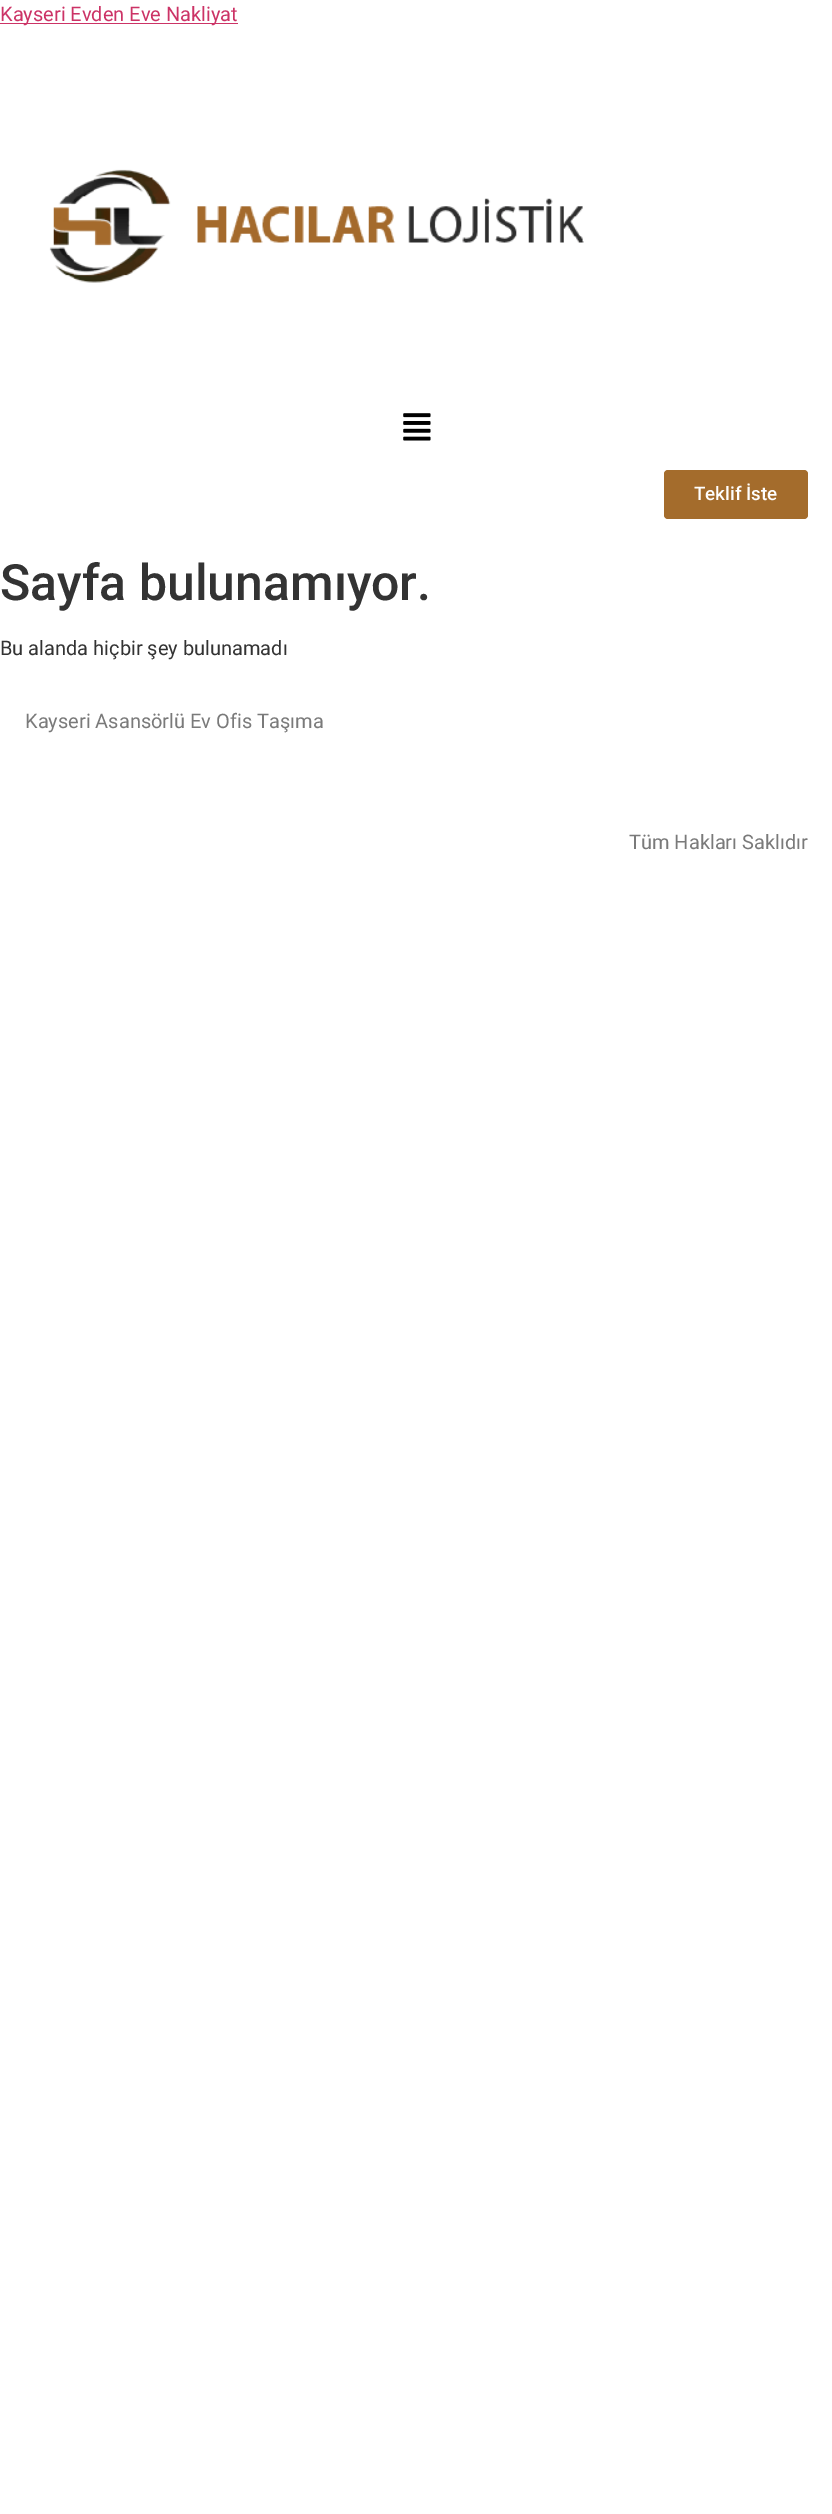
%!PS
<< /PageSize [832 2514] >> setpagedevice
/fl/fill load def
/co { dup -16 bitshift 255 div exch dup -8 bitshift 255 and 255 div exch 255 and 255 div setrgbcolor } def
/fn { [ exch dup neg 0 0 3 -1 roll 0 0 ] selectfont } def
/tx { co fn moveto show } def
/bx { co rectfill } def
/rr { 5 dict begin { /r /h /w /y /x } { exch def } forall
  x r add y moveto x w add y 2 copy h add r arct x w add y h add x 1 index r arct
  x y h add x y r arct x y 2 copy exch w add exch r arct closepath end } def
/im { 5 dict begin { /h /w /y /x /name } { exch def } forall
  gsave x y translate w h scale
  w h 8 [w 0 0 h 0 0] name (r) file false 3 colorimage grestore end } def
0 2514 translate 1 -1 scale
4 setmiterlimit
0 0 832 2514 16#FFFFFF bx
0 23 238 1 16#CC3366 bx
(media/1.raw) 49 169 535 114 im
(media/2.raw) 403 413 28 28 im
16#A46C2C co
664 470 144 49 4 rr fl
(Kayseri Evden Eve Nakliyat) 0 21 /Roboto-Regular 20 16#CC3366 tx
(Teklif İste) 694 500 /Roboto-Medium 18.75 16#FFFFFF tx
(Sayfa bulunamıyor.) 0 600 /Roboto-Medium 50 16#333333 tx
(Bu alanda hiçbir şey bulunamadı) 0 655 /Roboto-Regular 20 16#333333 tx
(Kayseri Asansörlü Ev Ofis Taşıma) 25 728 /Roboto-Regular 20 16#7A7A7A tx
(Tüm Hakları Saklıdır) 629 849 /Roboto-Regular 20 16#7A7A7A tx
showpage
